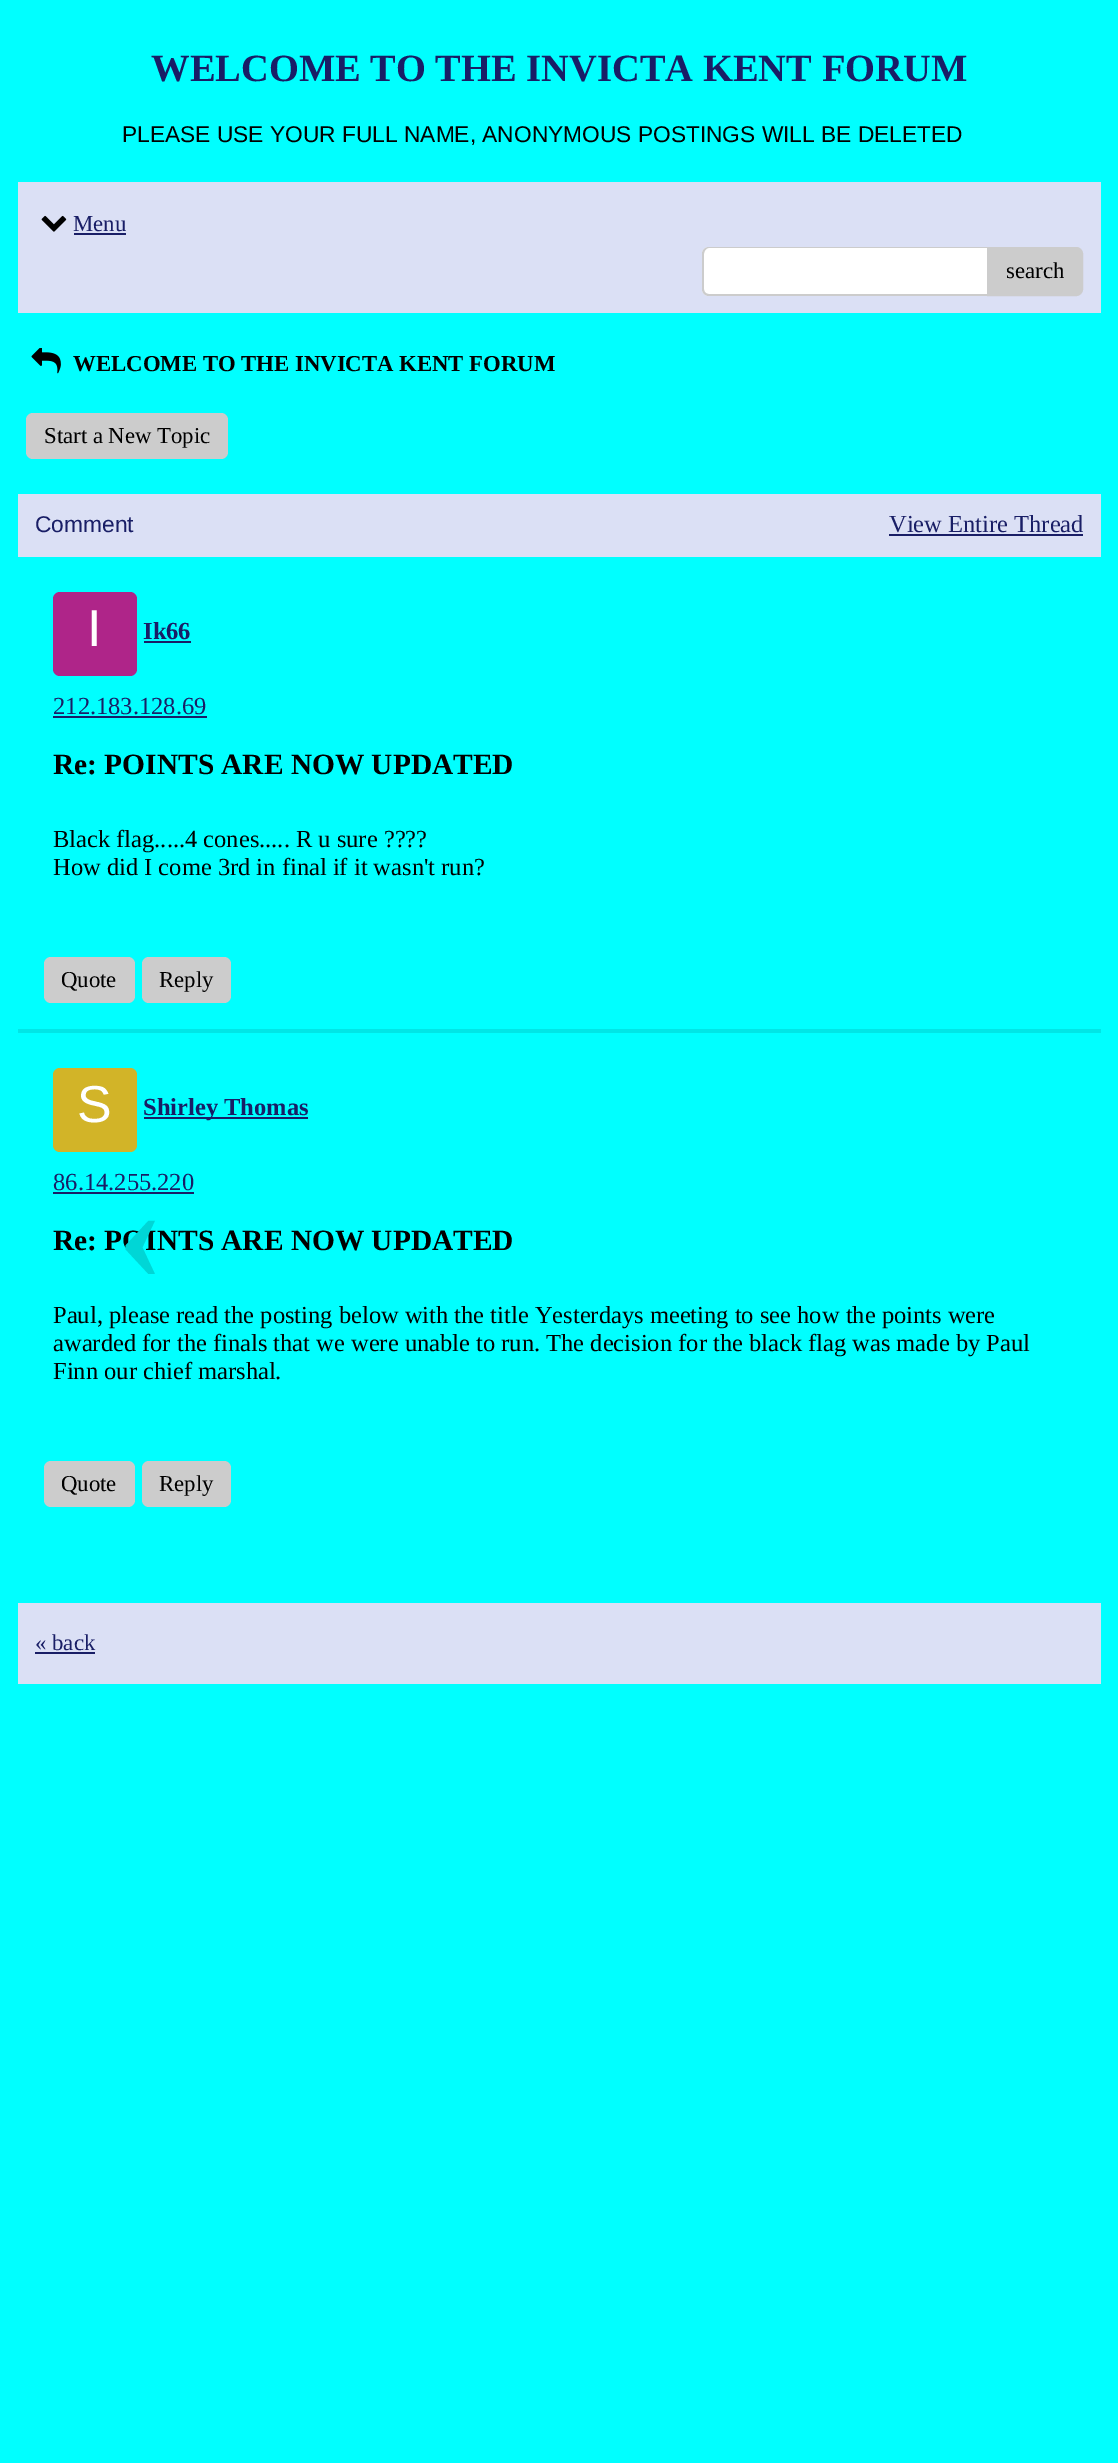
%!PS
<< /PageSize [1118 2463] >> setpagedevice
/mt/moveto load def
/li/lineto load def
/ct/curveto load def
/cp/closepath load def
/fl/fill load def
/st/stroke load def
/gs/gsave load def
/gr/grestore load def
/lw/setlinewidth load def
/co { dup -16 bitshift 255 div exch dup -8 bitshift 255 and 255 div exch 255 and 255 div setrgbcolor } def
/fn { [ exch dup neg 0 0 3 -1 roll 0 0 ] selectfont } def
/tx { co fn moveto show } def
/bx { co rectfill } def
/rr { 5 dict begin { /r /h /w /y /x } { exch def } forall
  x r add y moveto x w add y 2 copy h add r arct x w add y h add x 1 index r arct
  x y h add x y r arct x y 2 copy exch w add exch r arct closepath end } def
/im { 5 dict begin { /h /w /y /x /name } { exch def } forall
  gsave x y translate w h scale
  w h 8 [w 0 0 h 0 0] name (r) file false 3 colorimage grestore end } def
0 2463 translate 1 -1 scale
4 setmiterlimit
0 0 1118 2463 16#00FFFF bx
18 182 1083 131 16#DBE0F5 bx
(media/1.raw) 41 215 26 17 im
74 233 52 2 16#191E66 bx
16#FFFFFF co
702 247 364 49 7 rr fl
16#CCCCCC co
709 247 mt 1059 247 li 1063 247 1066 250 1066 254 ct 1066 289 li 1066 293 1063 296 1059 296 ct 709 296 li 705 296 702 293 702 289 ct 702 254 li 702 250 705 247 709 247 ct cp 709 248 mt 1059 248 li 1063 248 1066 251 1066 254 ct 1066 289 li 1066 292 1063 294 1059 294 ct 709 294 li 706 294 704 292 704 289 ct 704 254 li 704 251 706 248 709 248 ct cp eofill
988 248 mt 1076 248 li 1079.5 248 1082 250.5 1082 254 ct 1082 289 li 1082 292.5 1079.5 295 1076 295 ct 988 295 li cp gs fl gr
2 lw
st
(media/2.raw) 31 348 30 26 im
26 413 202 46 7 rr fl
18 494 1083 63 16#DBE0F5 bx
889 534 194 2 16#191E66 bx
18 1029 1083 4 16#00E6E6 bx
16#AF2589 co
53 592 84 84 7 rr fl
144 641 47 2 16#191E66 bx
53 716 154 2 16#191E66 bx
16#CCCCCC co
44 957 91 46 7 rr fl
142 957 89 46 7 rr fl
16#D2B428 co
53 1068 84 84 7 rr fl
144 1117 164 2 16#191E66 bx
53 1192 141 2 16#191E66 bx
16#CCCCCC co
44 1461 91 46 7 rr fl
142 1461 89 46 7 rr fl
18 1603 1083 81 16#DBE0F5 bx
35 1652 60 2 16#191E66 bx
(WELCOME TO THE INVICTA KENT FORUM) 151 81 /LiberationSerif-Bold 38.5 16#191E66 tx
(PLEASE USE YOUR FULL NAME, ANONYMOUS POSTINGS WILL BE DELETED) 122 142 /LiberationSans-Regular 22.75 16#000000 tx
(Menu) 73 231 /LiberationSerif-Regular 22.75 16#191E66 tx
(search) 1006 278 /LiberationSerif-Regular 22.75 16#000000 tx
(WELCOME TO THE INVICTA KENT FORUM) 73 371 /LiberationSerif-Bold 22.75 16#000000 tx
(Start a New Topic) 44 443 /LiberationSerif-Regular 22.75 16#000000 tx
(Comment) 35 532 /LiberationSans-Regular 22.75 16#191E66 tx
(View Entire Thread) 889 532 /LiberationSerif-Regular 24.5 16#191E66 tx
(I) 87 646 /LiberationSans-Regular 52 16#FFFFFF tx
(Ik66) 143 639 /LiberationSerif-Bold 24.5 16#191E66 tx
(212.183.128.69) 53 714 /LiberationSerif-Regular 24.5 16#191E66 tx
(Re: POINTS ARE NOW UPDATED) 53 774 /LiberationSerif-Bold 29.4 16#000000 tx
(Quote) 61 987 /LiberationSerif-Regular 22.75 16#000000 tx
(Reply) 159 987 /LiberationSerif-Regular 22.75 16#000000 tx
(Black flag.....4 cones..... R u sure ????) 53 847 /LiberationSerif-Regular 24.5 16#000000 tx
(How did I come 3rd in final if it wasn't run?) 53 875 /LiberationSerif-Regular 24.5 16#000000 tx
(S) 77 1122 /LiberationSans-Regular 52 16#FFFFFF tx
gs
144 1094 297 28 rectclip
(Shirley Thomas) 143 1115 /LiberationSerif-Bold 24.5 16#191E66 tx
gr
(86.14.255.220) 53 1190 /LiberationSerif-Regular 24.5 16#191E66 tx
(Re: POINTS ARE NOW UPDATED) 53 1250 /LiberationSerif-Bold 29.4 16#000000 tx
(Quote) 61 1491 /LiberationSerif-Regular 22.75 16#000000 tx
(Reply) 159 1491 /LiberationSerif-Regular 22.75 16#000000 tx
(Paul, please read the posting below with the title Yesterdays meeting to see how the points were) 53 1323 /LiberationSerif-Regular 24.5 16#000000 tx
(awarded for the finals that we were unable to run. The decision for the black flag was made by Paul) 53 1351 /LiberationSerif-Regular 24.5 16#000000 tx
(Finn our chief marshal.) 53 1379 /LiberationSerif-Regular 24.5 16#000000 tx
(‹) 117 1279 /LiberationSerif-Bold 140 16#00D6D6 tx
(« back) 35 1650 /LiberationSerif-Regular 22.75 16#191E66 tx
showpage
